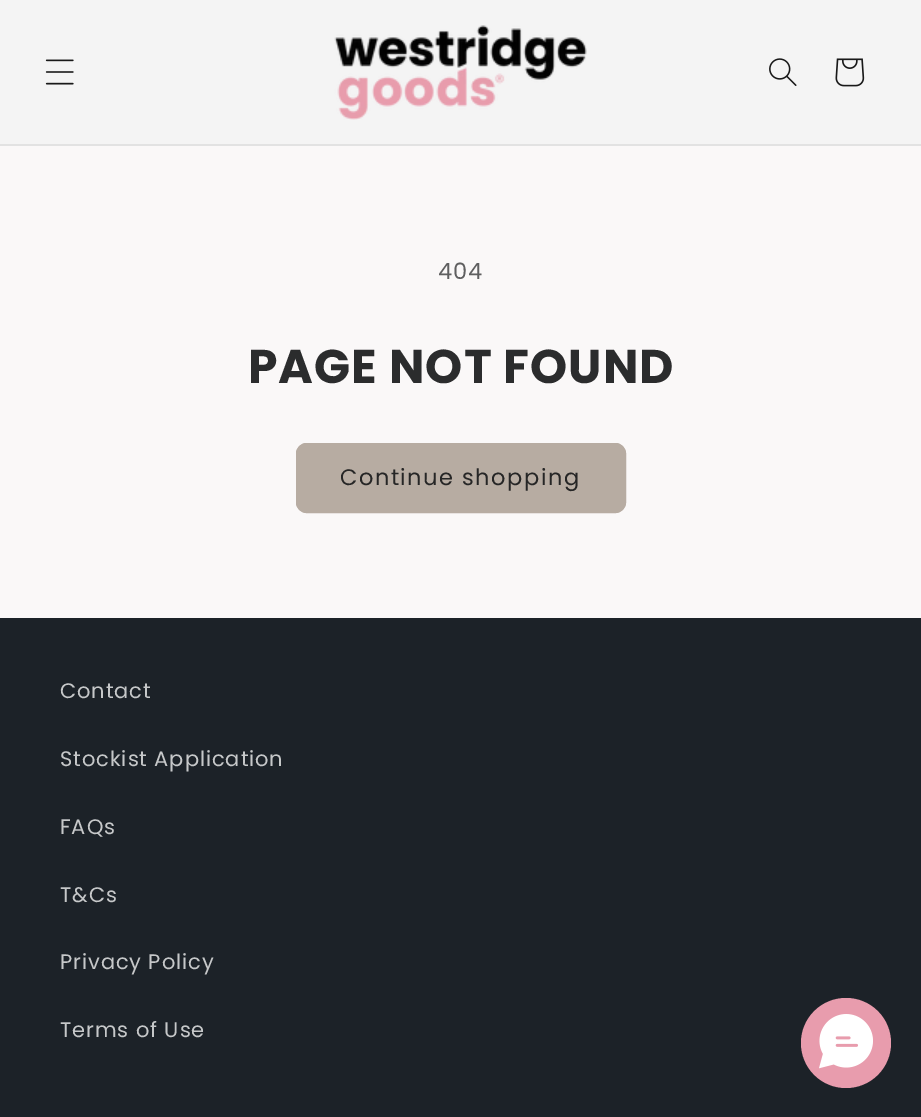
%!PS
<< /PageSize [921 1117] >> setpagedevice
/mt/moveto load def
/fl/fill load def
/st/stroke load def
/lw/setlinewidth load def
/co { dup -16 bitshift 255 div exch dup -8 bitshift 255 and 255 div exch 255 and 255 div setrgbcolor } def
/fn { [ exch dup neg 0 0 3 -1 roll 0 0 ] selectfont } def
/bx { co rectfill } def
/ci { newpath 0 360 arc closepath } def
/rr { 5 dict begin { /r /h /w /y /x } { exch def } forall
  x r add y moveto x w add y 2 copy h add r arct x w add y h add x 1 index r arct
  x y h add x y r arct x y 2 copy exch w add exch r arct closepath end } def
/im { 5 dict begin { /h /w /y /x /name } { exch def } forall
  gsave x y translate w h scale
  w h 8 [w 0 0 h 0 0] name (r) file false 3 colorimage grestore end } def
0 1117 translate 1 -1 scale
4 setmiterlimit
0 0 921 1117 16#FAF8F8 bx
0 0 921 144 16#F4F4F4 bx
0 144 921 2 16#E2E2E2 bx
(media/1.raw) 45 59 29 26 im
(media/2.raw) 334 25 253 95 im
(media/3.raw) 769 58 28 28 im
(media/4.raw) 835 58 30 29 im
16#B7ACA2 co
296 443 330 70 11 rr fl
2 lw
297 444 328 68 10 rr st
0 618 921 499 16#1C2228 bx
16#E89CAD co
846 1043 45 ci fl
(media/5.raw) 819 1014 54 55 im
/Poppins-Regular 22.5 fn
16#5F5F60 co
438 279 mt .9 0 (404) ashow
/Poppins-Bold 47.25 fn
16#2B2C2D co
248 383 mt 1 0 (PAGE NOT FOUND) ashow
/Poppins-Regular 22.5 fn
16#262626 co
340 485 mt 1.5 0 (Continue shopping) ashow
/Poppins-Regular 21 fn
16#C6C8C9 co
60 698 mt .9 0 (Contact) ashow
60 766 mt .9 0 (Stockist Application) ashow
60 834 mt .9 0 (FAQs) ashow
60 902 mt .9 0 (T&Cs) ashow
60 969 mt .9 0 (Privacy Policy) ashow
60 1037 mt .9 0 (Terms of Use) ashow
showpage
